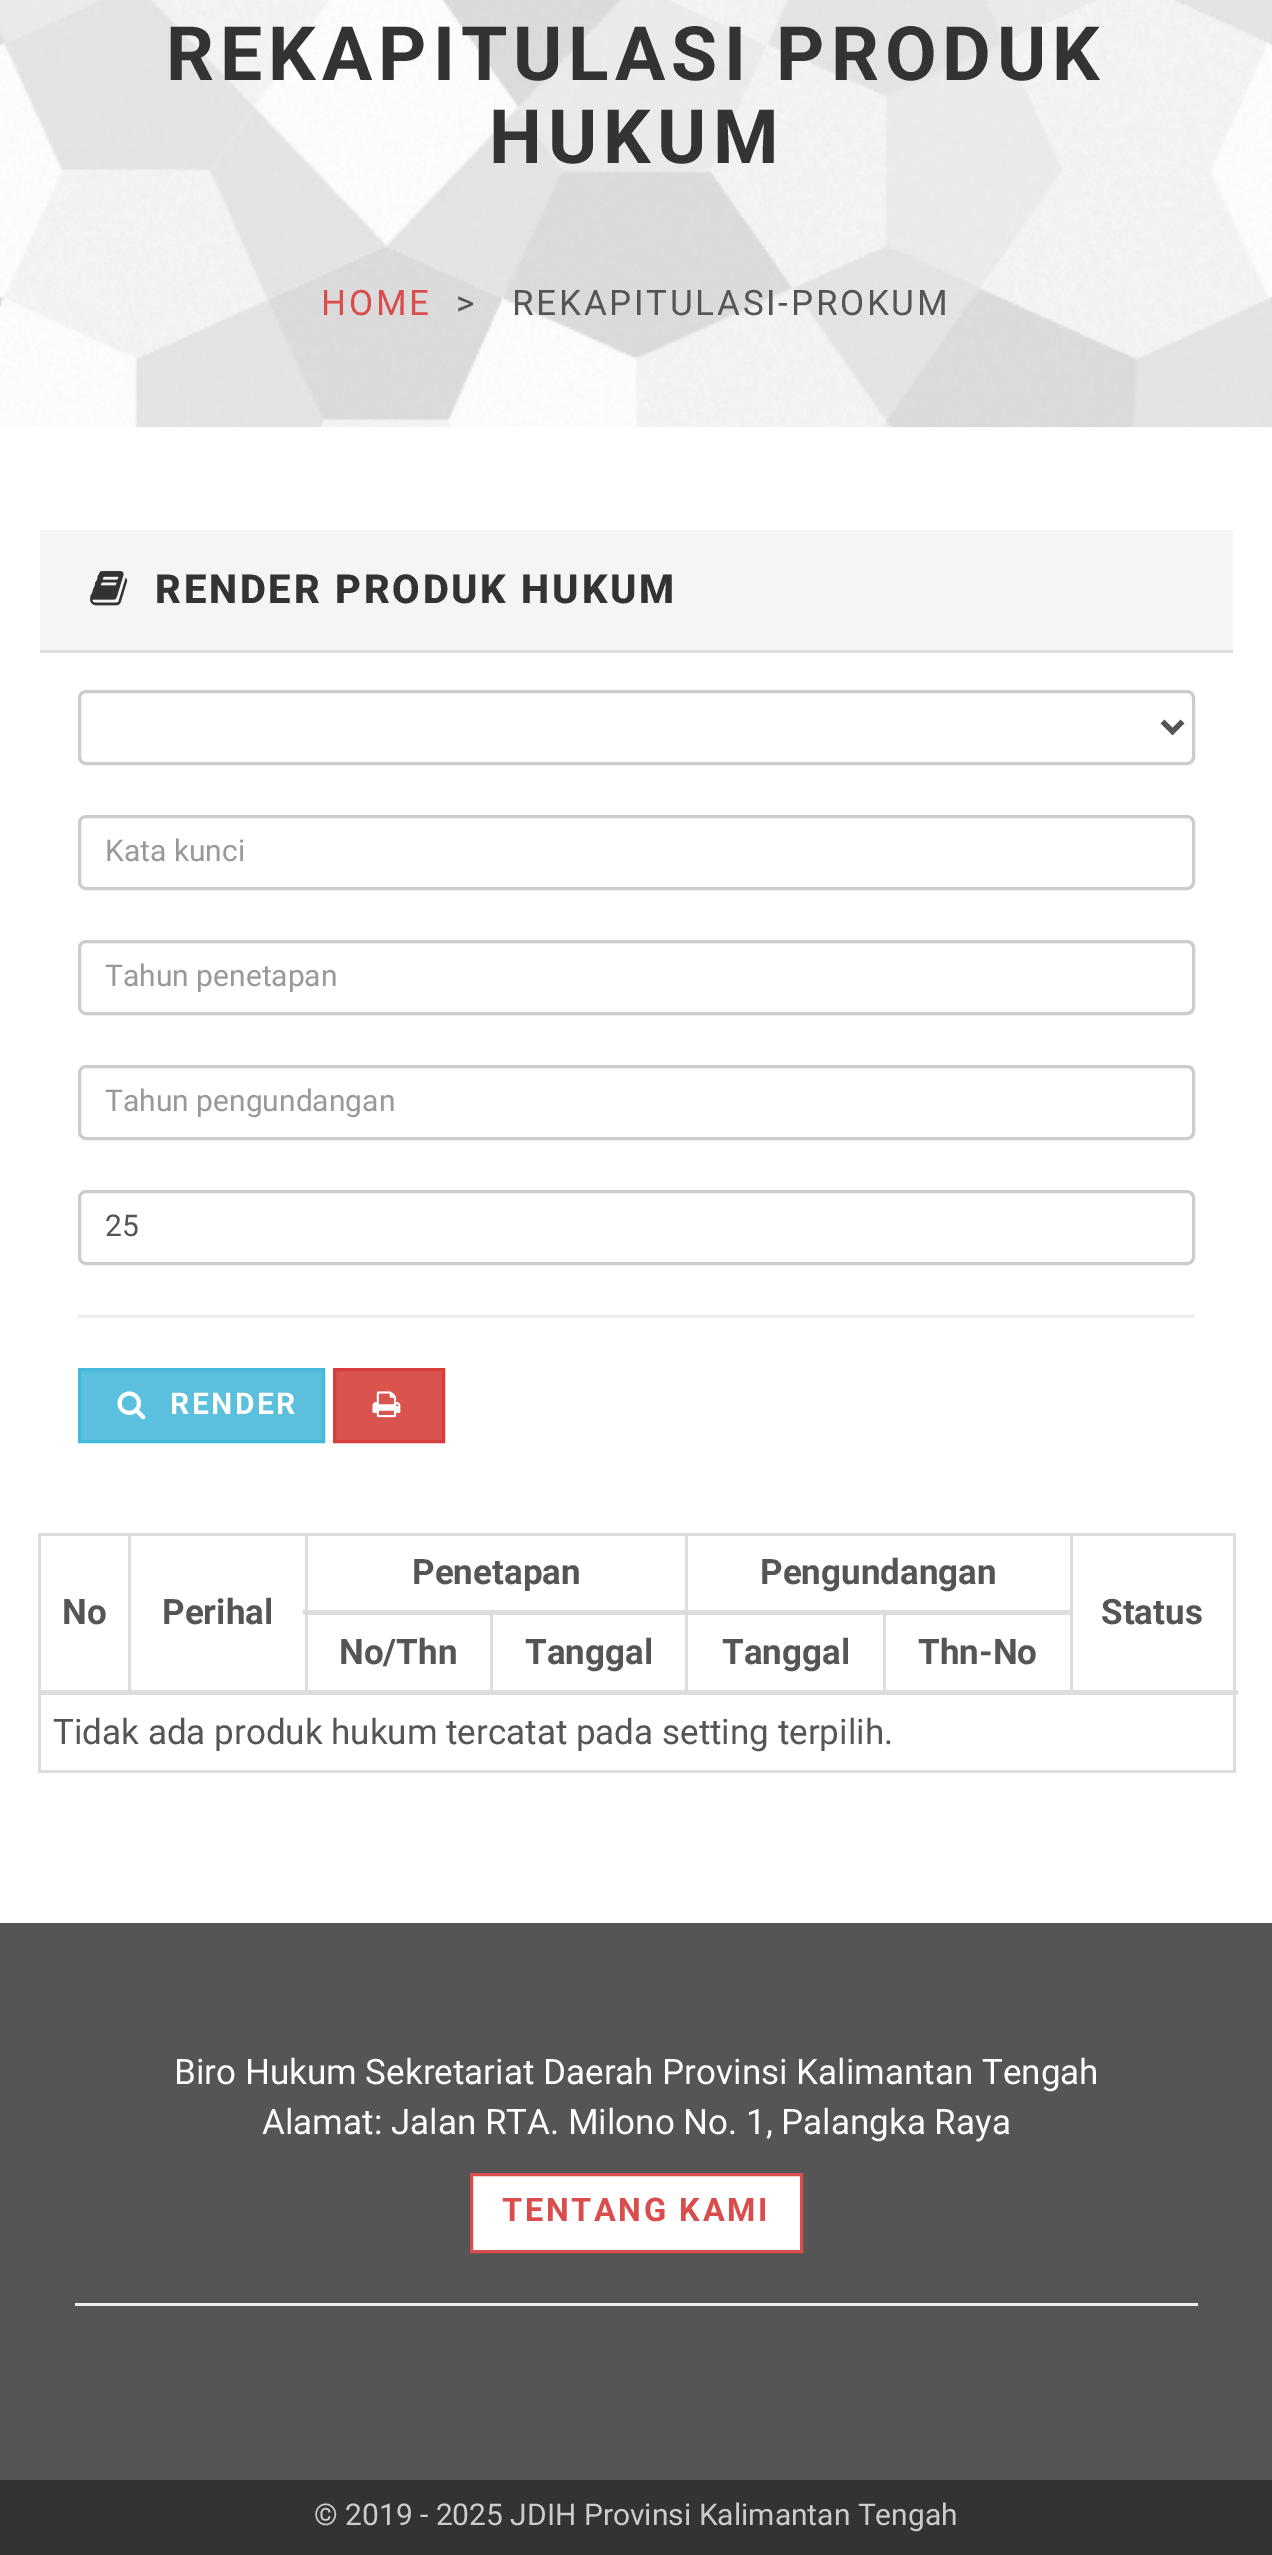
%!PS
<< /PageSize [1272 2555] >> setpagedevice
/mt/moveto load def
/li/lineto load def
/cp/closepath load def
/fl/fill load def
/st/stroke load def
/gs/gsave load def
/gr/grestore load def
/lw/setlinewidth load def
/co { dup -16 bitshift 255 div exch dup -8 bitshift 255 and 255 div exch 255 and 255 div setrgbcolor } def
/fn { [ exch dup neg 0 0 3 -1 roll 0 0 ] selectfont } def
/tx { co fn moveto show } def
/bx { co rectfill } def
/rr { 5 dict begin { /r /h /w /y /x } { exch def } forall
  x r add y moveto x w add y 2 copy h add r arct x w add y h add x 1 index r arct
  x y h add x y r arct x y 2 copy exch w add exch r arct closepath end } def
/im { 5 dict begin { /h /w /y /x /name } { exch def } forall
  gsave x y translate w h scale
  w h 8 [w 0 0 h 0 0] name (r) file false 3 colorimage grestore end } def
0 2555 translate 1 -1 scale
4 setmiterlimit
0 0 1272 2555 16#FFFFFF bx
(media/1.raw) 0 0 1272 427 im
40 530 1193 120 16#F5F5F5 bx
(media/2.raw) 90 571 38 35 im
40 650 1193 3 16#DDDDDD bx
16#CCCCCC co
3 lw
79.5 691.5 1114 72 6.5 rr st
16#555555 co
5 lw
1162.5 721.5 mt 1172.5 731.5 li 1182.5 721.5 li st
16#CCCCCC co
3 lw
79.5 816.5 1114 72 6.5 rr st
79.5 941.5 1114 72 6.5 rr st
79.5 1066.5 1114 72 6.5 rr st
79.5 1191.5 1114 72 6.5 rr st
78 1315 1117 3 16#EEEEEE bx
16#5BC0DE co
79.5 1369.5 mt 323.5 1369.5 li 323.5 1441.5 li 79.5 1441.5 li cp gs fl gr
16#46B8DA co
st
(media/3.raw) 117 1391 29 29 im
16#D9534F co
334.5 1369.5 mt 443.5 1369.5 li 443.5 1441.5 li 334.5 1441.5 li cp gs fl gr
16#D43F3A co
st
(media/4.raw) 372 1391 29 27 im
38 1533 1197 3 16#DDDDDD bx
1233 1533 3 240 16#DDDDDD bx
38 1770 1197 3 16#DDDDDD bx
38 1533 3 240 16#DDDDDD bx
1070 1533 3 160 16#DDDDDD bx
305 1533 3 160 16#DDDDDD bx
490 1610 3 83 16#DDDDDD bx
685 1533 3 160 16#DDDDDD bx
883 1610 3 83 16#DDDDDD bx
303 1610 770 5 16#DDDDDD bx
128 1533 3 160 16#DDDDDD bx
38 1690 1200 5 16#DDDDDD bx
0 1923 1272 557 16#555555 bx
16#FFFFFF co
471.5 2174.5 mt 801.5 2174.5 li 801.5 2251.5 li 471.5 2251.5 li cp gs fl gr
16#DA4D4D co
st
75 2303 1123 3 16#EEEEEE bx
0 2480 1272 75 16#333333 bx
/Roboto-Bold 75 fn
166 80 mt 6 0 (REKAPITULASI PRODUK) ashow
489 163 mt 6 0 (HUKUM) ashow
/Roboto-Regular 35 fn
16#DA4D4D co
321 315 mt 2.75 0 (HOME) ashow
16#555555 co
456 315 mt 2.75 0 (>) ashow
512 315 mt 2.75 0 (REKAPITULASI-PROKUM) ashow
/Roboto-ExtraBold 40 fn
16#333333 co
155 603 mt 2.75 0 (RENDER PRODUK HUKUM) ashow
(Kata kunci) 105 861 /Roboto-Regular 30 16#999999 tx
(Tahun penetapan) 105 986 /Roboto-Regular 30 16#999999 tx
(Tahun pengundangan) 105 1111 /Roboto-Regular 30 16#999999 tx
(25) 105 1236 /Roboto-Regular 30 16#555555 tx
/Roboto-Bold 30 fn
16#FFFFFF co
170 1414 mt 2.5 0 (RENDER) ashow
(Penetapan) 412 1584 /Roboto-Bold 35 16#555555 tx
(Pengundangan) 760 1584 /Roboto-Bold 35 16#555555 tx
(No) 62 1624 /Roboto-Bold 35 16#555555 tx
(Perihal) 162 1624 /Roboto-Bold 35 16#555555 tx
(Status) 1101 1624 /Roboto-Bold 35 16#555555 tx
(No/Thn) 339 1664 /Roboto-Bold 35 16#555555 tx
(Tanggal) 525 1664 /Roboto-Bold 35 16#555555 tx
(Tanggal) 722 1664 /Roboto-Bold 35 16#555555 tx
(Thn-No) 918 1664 /Roboto-Bold 35 16#555555 tx
(Tidak ada produk hukum tercatat pada setting terpilih.) 53 1744 /Roboto-Regular 35 16#555555 tx
(Biro Hukum Sekretariat Daerah Provinsi Kalimantan Tengah) 174 2084 /Roboto-Regular 35 16#FFFFFF tx
(Alamat: Jalan RTA. Milono No. 1, Palangka Raya) 262 2134 /Roboto-Regular 35 16#FFFFFF tx
/Roboto-Bold 32.5 fn
16#DA4D4D co
502 2221 mt 2.6 0 (TENTANG KAMI) ashow
(© 2019 - 2025 JDIH Provinsi Kalimantan Tengah) 314 2525 /Roboto-Regular 30 16#CCCCCC tx
showpage
